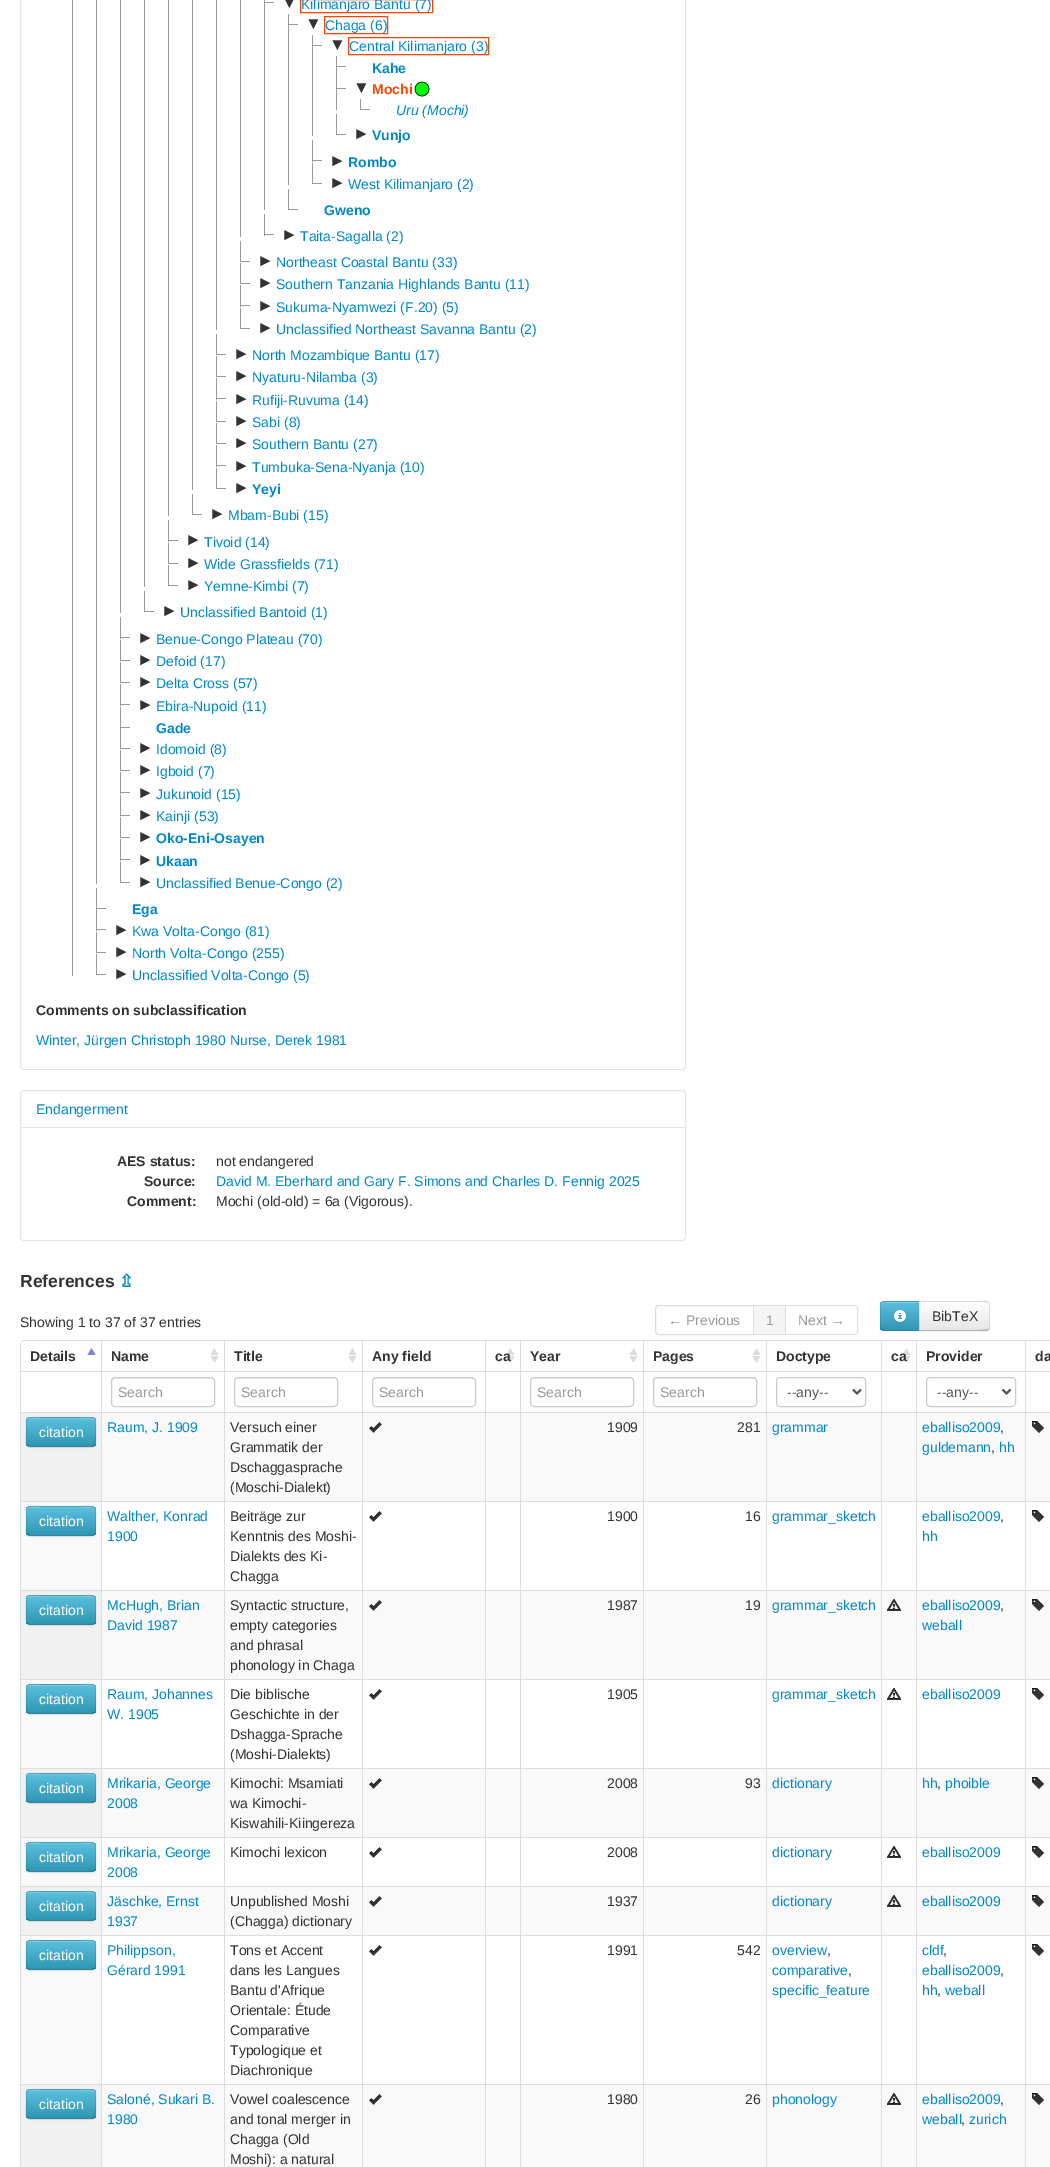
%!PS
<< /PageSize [1050 2167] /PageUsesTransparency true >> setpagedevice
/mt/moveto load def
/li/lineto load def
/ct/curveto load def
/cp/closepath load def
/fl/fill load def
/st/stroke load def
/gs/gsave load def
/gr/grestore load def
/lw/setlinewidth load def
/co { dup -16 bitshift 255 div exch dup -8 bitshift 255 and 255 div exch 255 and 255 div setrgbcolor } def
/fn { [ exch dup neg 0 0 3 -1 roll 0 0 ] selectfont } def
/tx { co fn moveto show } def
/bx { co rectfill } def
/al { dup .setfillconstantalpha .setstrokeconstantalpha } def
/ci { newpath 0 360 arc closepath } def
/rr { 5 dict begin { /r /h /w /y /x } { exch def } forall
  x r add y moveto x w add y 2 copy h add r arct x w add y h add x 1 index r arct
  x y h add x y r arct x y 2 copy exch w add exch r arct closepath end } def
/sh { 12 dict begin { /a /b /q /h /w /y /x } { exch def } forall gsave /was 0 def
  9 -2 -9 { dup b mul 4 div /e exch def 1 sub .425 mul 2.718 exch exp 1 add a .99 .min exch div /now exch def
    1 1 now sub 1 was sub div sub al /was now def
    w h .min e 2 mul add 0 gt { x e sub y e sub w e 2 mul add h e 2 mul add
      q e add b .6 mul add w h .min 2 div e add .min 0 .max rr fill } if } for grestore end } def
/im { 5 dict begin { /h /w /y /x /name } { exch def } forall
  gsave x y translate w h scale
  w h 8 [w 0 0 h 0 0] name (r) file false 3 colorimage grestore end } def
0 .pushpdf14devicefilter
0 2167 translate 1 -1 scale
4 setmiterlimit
0 0 1050 2167 16#FFFFFF bx
16#E5E5E5 co
20.5 -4.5 665 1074 3.5 rr st
72 0 1 976 16#999999 bx
96 0 1 884 16#999999 bx
120 0 1 613 16#999999 bx
144 0 1 587 16#999999 bx
168 0 1 516 16#999999 bx
192 0 1 490 16#999999 bx
216 0 1 330 16#999999 bx
240 0 1 237 16#999999 bx
264 2 10 1 16#999999 bx
264 0 1 210 16#999999 bx
16#FF4500 co
300.5 -.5 132 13 rectstroke
288 24 10 1 16#999999 bx
288 14 1 171 16#999999 bx
16#FF4500 co
324.5 16.5 63 17 rectstroke
312 45 10 1 16#999999 bx
312 35 1 101 16#999999 bx
16#FF4500 co
348.5 37.5 140 17 rectstroke
336 66 10 1 16#999999 bx
336 56 1 12 16#999999 bx
336 88 10 1 16#999999 bx
336 68 1 42 16#999999 bx
16#00FF00 co
422 89 7 ci gs fl gr
16#000000 co
.5 lw
st
360 109 10 1 16#999999 bx
360 99 1 11 16#999999 bx
336 134 10 1 16#999999 bx
336 114 1 21 16#999999 bx
312 160 10 1 16#999999 bx
312 140 1 22 16#999999 bx
312 183 10 1 16#999999 bx
312 163 1 21 16#999999 bx
288 209 10 1 16#999999 bx
288 189 1 21 16#999999 bx
264 234 10 1 16#999999 bx
264 214 1 22 16#999999 bx
240 261 10 1 16#999999 bx
240 241 1 21 16#999999 bx
240 283 10 1 16#999999 bx
240 263 1 21 16#999999 bx
240 305 10 1 16#999999 bx
240 285 1 22 16#999999 bx
240 328 10 1 16#999999 bx
240 308 1 21 16#999999 bx
216 354 10 1 16#999999 bx
216 334 1 21 16#999999 bx
216 376 10 1 16#999999 bx
216 356 1 21 16#999999 bx
216 398 10 1 16#999999 bx
216 378 1 22 16#999999 bx
216 421 10 1 16#999999 bx
216 401 1 21 16#999999 bx
216 443 10 1 16#999999 bx
216 423 1 21 16#999999 bx
216 465 10 1 16#999999 bx
216 445 1 22 16#999999 bx
216 488 10 1 16#999999 bx
216 468 1 21 16#999999 bx
192 514 10 1 16#999999 bx
192 494 1 21 16#999999 bx
168 540 10 1 16#999999 bx
168 520 1 22 16#999999 bx
168 563 10 1 16#999999 bx
168 543 1 21 16#999999 bx
168 585 10 1 16#999999 bx
168 565 1 21 16#999999 bx
144 611 10 1 16#999999 bx
144 591 1 21 16#999999 bx
120 637 10 1 16#999999 bx
120 617 1 22 16#999999 bx
120 660 10 1 16#999999 bx
120 640 1 21 16#999999 bx
120 682 10 1 16#999999 bx
120 662 1 21 16#999999 bx
120 704 10 1 16#999999 bx
120 684 1 22 16#999999 bx
120 727 10 1 16#999999 bx
120 707 1 21 16#999999 bx
120 748 10 1 16#999999 bx
120 728 1 21 16#999999 bx
120 770 10 1 16#999999 bx
120 750 1 21 16#999999 bx
120 792 10 1 16#999999 bx
120 772 1 22 16#999999 bx
120 815 10 1 16#999999 bx
120 795 1 21 16#999999 bx
120 837 10 1 16#999999 bx
120 817 1 21 16#999999 bx
120 859 10 1 16#999999 bx
120 839 1 22 16#999999 bx
120 882 10 1 16#999999 bx
120 862 1 21 16#999999 bx
96 908 10 1 16#999999 bx
96 888 1 21 16#999999 bx
96 929 10 1 16#999999 bx
96 909 1 22 16#999999 bx
96 952 10 1 16#999999 bx
96 932 1 21 16#999999 bx
96 974 10 1 16#999999 bx
96 954 1 21 16#999999 bx
16#E5E5E5 co
1 lw
20.5 1090.5 665 150 3.5 rr st
21 1127 664 1 16#E5E5E5 bx
16#DDDDDD co
659 1305.5 mt 753.5 1305.5 li 753.5 1334.5 li 659 1334.5 li 657 1334.5 655.5 1333 655.5 1331 ct 655.5 1309 li 655.5 1307 657 1305.5 659 1305.5 ct cp st
754 1306 31 28 16#F5F5F5 bx
754 1305 32 1 16#DDDDDD bx
785 1305 1 30 16#DDDDDD bx
754 1334 32 1 16#DDDDDD bx
786 1305 mt 854 1305 li 856 1305 858 1307 858 1309 ct 858 1331 li 858 1333 856 1335 854 1335 ct 786 1335 li cp 786 1306 mt 854 1306 li 856 1306 857 1307 857 1309 ct 857 1331 li 857 1333 856 1334 854 1334 ct 786 1334 li cp eofill
16#000000 co
880 1302 40 30 4 1 .05 sh
16#49AFCD co
884 1301 mt 920 1301 li 920 1331 li 884 1331 li 882 1331 880 1329 880 1327 ct 880 1305 li 880 1303 882 1301 884 1301 ct cp fl
gs
884 1301 mt 920 1301 li 920 1331 li 884 1331 li 882 1331 880 1329 880 1327 ct 880 1305 li 880 1303 882 1301 884 1301 ct cp clip newpath
gs 880 1302 mt 919 1302 li 919 1330 li 880 1330 li cp clip newpath
<< /ShadingType 2 /ColorSpace /DeviceRGB /Coords [900 1302 900 1330] /Extend [true true] /Function << /FunctionType 2 /Domain [0 1] /C0 [.357 .753 .871] /C1 [.184 .588 .706] /N 1 >> >> shfill gr
gr
16#7BCCE4 co
884 1303 mt 919 1303 li 919 1302 li 884 1302 li 882.5 1302 881 1303.5 881 1305 ct 881 1306 li 881 1304 882 1303 884 1303 ct cp fl
0.1 al
16#000000 co
884 1301 mt 883 1301 882 1301.5 881 1302 ct 882 1303 li 882 1302 883 1302 884 1302 ct 919 1302 li 920 1301 li cp fl
0.25 al
920 1331 mt 919 1330 li 884 1330 li 883 1330 882 1330 882 1329 ct 881 1330 li 882 1330.5 883 1331 884 1331 ct cp fl
0.1 al
880 1305 mt 880 1327 li 880 1328 880.5 1329 881 1330 ct 882 1329 li 881 1329 881 1328 881 1327 ct 881 1305 li 881 1304 881 1303 882 1303 ct 881 1302 li 880.5 1303 880 1304 880 1305 ct cp fl
1 al
(media/1.raw) 894 1310 12 13 im
919 1302 71 30 4 1 .05 sh
16#F5F5F5 co
919 1301 mt 986 1301 li 988 1301 990 1303 990 1305 ct 990 1327 li 990 1329 988 1331 986 1331 ct 919 1331 li cp fl
gs
919 1301 mt 986 1301 li 988 1301 990 1303 990 1305 ct 990 1327 li 990 1329 988 1331 986 1331 ct 919 1331 li cp clip newpath
gs 919 1302 mt 990 1302 li 990 1330 li 919 1330 li cp clip newpath
<< /ShadingType 2 /ColorSpace /DeviceRGB /Coords [955 1302 955 1330] /Extend [true true] /Function << /FunctionType 2 /Domain [0 1] /C0 [1 1 1] /C1 [.902 .902 .902] /N 1 >> >> shfill gr
gr
0.1 al
16#000000 co
919 1301 mt 920 1302 li 927 1302 987 1301 988 1303 ct 989 1302 li 986 1301 li cp fl
990 1327 mt 990 1305 li 990 1304 989.5 1303 989 1302 ct 988 1303 li 989 1303 989 1304 989 1305 ct 989 1327 li 989 1328 989 1329 988 1329 ct 989 1330 li 989.5 1329 990 1328 990 1327 ct cp fl
1 al
16#B3B3B3 co
986 1331 mt 989 1330 li 988 1329 li 987 1331 927 1330 920 1330 ct 919 1331 li cp fl
0.1 al
16#000000 co
919 1301 mt 919 1331 li 920 1330 li 920 1302 li cp fl
1 al
16#DDDDDD co
24 1340 mt 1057 1340 li 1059 1340 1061 1342 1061 1344 ct 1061 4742 li 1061 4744 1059 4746 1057 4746 ct 24 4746 li 22 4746 20 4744 20 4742 ct 20 1344 li 20 1342 22 1340 24 1340 ct cp 24 1341 mt 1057 1341 li 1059 1341 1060 1342 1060 1344 ct 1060 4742 li 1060 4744 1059 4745 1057 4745 ct 24 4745 li 22 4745 20 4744 20 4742 ct 20 1344 li 20 1342 22 1341 24 1341 ct cp eofill
(media/2.raw) 87 1348 9 7 im
20 1343 1 28 16#DDDDDD bx
(media/3.raw) 210 1348 9 15 im
101 1341 1 30 16#DDDDDD bx
(media/3.raw) 348 1348 9 15 im
224 1341 1 30 16#DDDDDD bx
362 1341 1 30 16#DDDDDD bx
(media/3.raw) 506 1348 9 15 im
485 1341 1 30 16#DDDDDD bx
(media/3.raw) 629 1348 9 15 im
520 1341 1 30 16#DDDDDD bx
(media/3.raw) 752 1348 9 15 im
643 1341 1 30 16#DDDDDD bx
766 1341 1 30 16#DDDDDD bx
(media/3.raw) 902 1348 9 15 im
881 1341 1 30 16#DDDDDD bx
916 1341 1 30 16#DDDDDD bx
1025 1341 1 30 16#DDDDDD bx
20 1371 1030 1 16#DDDDDD bx
20 1371 1 41 16#DDDDDD bx
101 1371 1 41 16#DDDDDD bx
16#ECECEC co
115 1379 mt 211 1379 li 213 1379 214 1380 214 1382 ct 214 1374 198 1378 195 1378 ct 131 1378 li 128 1378 112 1374 112 1382 ct 112 1380 113 1379 115 1379 ct cp fl
16#CCCCCC co
111.5 1377.5 103 29 3.5 rr st
224 1371 1 41 16#DDDDDD bx
16#ECECEC co
238 1379 mt 334 1379 li 336 1379 337 1380 337 1382 ct 337 1374 321 1378 318 1378 ct 254 1378 li 251 1378 235 1374 235 1382 ct 235 1380 236 1379 238 1379 ct cp fl
16#CCCCCC co
234.5 1377.5 103 29 3.5 rr st
362 1371 1 41 16#DDDDDD bx
16#ECECEC co
376 1379 mt 472 1379 li 474 1379 475 1380 475 1382 ct 475 1374 459 1378 456 1378 ct 392 1378 li 389 1378 373 1374 373 1382 ct 373 1380 374 1379 376 1379 ct cp fl
16#CCCCCC co
372.5 1377.5 103 29 3.5 rr st
485 1371 1 41 16#DDDDDD bx
520 1371 1 41 16#DDDDDD bx
16#ECECEC co
534 1379 mt 630 1379 li 632 1379 633 1380 633 1382 ct 633 1374 617 1378 614 1378 ct 550 1378 li 547 1378 531 1374 531 1382 ct 531 1380 532 1379 534 1379 ct cp fl
16#CCCCCC co
530.5 1377.5 103 29 3.5 rr st
643 1371 1 41 16#DDDDDD bx
16#ECECEC co
657 1379 mt 753 1379 li 755 1379 756 1380 756 1382 ct 756 1374 740 1378 737 1378 ct 673 1378 li 670 1378 654 1374 654 1382 ct 654 1380 655 1379 657 1379 ct cp fl
16#CCCCCC co
653.5 1377.5 103 29 3.5 rr st
766 1371 1 41 16#DDDDDD bx
16#CCCCCC co
776.5 1377.5 89 29 3.5 rr st
16#555555 co
2 lw
853 1389.5 mt 857 1393.5 li 861 1389.5 li st
881 1371 1 41 16#DDDDDD bx
916 1371 1 41 16#DDDDDD bx
16#CCCCCC co
1 lw
926.5 1377.5 89 29 3.5 rr st
16#555555 co
2 lw
1002.5 1389.5 mt 1006.5 1393.5 li 1010.5 1389.5 li st
1025 1371 1 41 16#DDDDDD bx
102 1413 948 88 16#F9F9F9 bx
21 1413 80 88 16#F1F1F1 bx
20 1412 1030 1 16#DDDDDD bx
20 1412 1 89 16#DDDDDD bx
16#000000 co
26 1418 70 30 4 1 .05 sh
16#49AFCD co
26 1417 70 30 4 rr fl
gs
26 1417 70 30 4 rr clip newpath
gs 26 1418 mt 96 1418 li 96 1446 li 26 1446 li cp clip newpath
<< /ShadingType 2 /ColorSpace /DeviceRGB /Coords [61 1418 61 1446] /Extend [true true] /Function << /FunctionType 2 /Domain [0 1] /C0 [.357 .753 .871] /C1 [.184 .588 .706] /N 1 >> >> shfill gr
gr
0.2 al
16#FFFFFF co
30 1419 mt 92 1419 li 94 1419 95 1420 95 1422 ct 95 1415 86 1418 82 1418 ct 40 1418 li 36 1418 27 1415 27 1422 ct 27 1420 28 1419 30 1419 ct cp fl
0.25 al
16#000000 co
1 lw
94.5 1445.5 mt 92.5 1446.5 li 29.5 1446.5 li 27.5 1445.5 li st
0.1 al
27.5 1445.5 mt 25.5 1443.5 26.5 1435 26.5 1432 ct 26.5 1416 24 1417.5 40.5 1417.5 ct 81.5 1417.5 li 98 1417.5 95.5 1416 95.5 1432 ct 95.5 1435 96.5 1443.5 94.5 1445.5 ct st
1 al
101 1412 1 89 16#DDDDDD bx
224 1412 1 89 16#DDDDDD bx
362 1412 1 89 16#DDDDDD bx
(media/4.raw) 369 1422 13 11 im
485 1412 1 89 16#DDDDDD bx
520 1412 1 89 16#DDDDDD bx
643 1412 1 89 16#DDDDDD bx
766 1412 1 89 16#DDDDDD bx
881 1412 1 89 16#DDDDDD bx
916 1412 1 89 16#DDDDDD bx
1025 1412 1 89 16#DDDDDD bx
(media/5.raw) 1032 1421 12 12 im
21 1502 80 88 16#F9F9F9 bx
20 1501 1030 1 16#DDDDDD bx
20 1501 1 89 16#DDDDDD bx
16#000000 co
26 1507 70 30 4 1 .05 sh
16#49AFCD co
26 1506 70 30 4 rr fl
gs
26 1506 70 30 4 rr clip newpath
gs 26 1507 mt 96 1507 li 96 1535 li 26 1535 li cp clip newpath
<< /ShadingType 2 /ColorSpace /DeviceRGB /Coords [61 1507 61 1535] /Extend [true true] /Function << /FunctionType 2 /Domain [0 1] /C0 [.357 .753 .871] /C1 [.184 .588 .706] /N 1 >> >> shfill gr
gr
0.2 al
16#FFFFFF co
30 1508 mt 92 1508 li 94 1508 95 1509 95 1511 ct 95 1504 86 1507 82 1507 ct 40 1507 li 36 1507 27 1504 27 1511 ct 27 1509 28 1508 30 1508 ct cp fl
0.25 al
16#000000 co
94.5 1534.5 mt 92.5 1535.5 li 29.5 1535.5 li 27.5 1534.5 li st
0.1 al
27.5 1534.5 mt 25.5 1532.5 26.5 1524 26.5 1521 ct 26.5 1505 24 1506.5 40.5 1506.5 ct 81.5 1506.5 li 98 1506.5 95.5 1505 95.5 1521 ct 95.5 1524 96.5 1532.5 94.5 1534.5 ct st
1 al
101 1501 1 89 16#DDDDDD bx
224 1501 1 89 16#DDDDDD bx
362 1501 1 89 16#DDDDDD bx
(media/6.raw) 369 1511 13 11 im
485 1501 1 89 16#DDDDDD bx
520 1501 1 89 16#DDDDDD bx
643 1501 1 89 16#DDDDDD bx
766 1501 1 89 16#DDDDDD bx
881 1501 1 89 16#DDDDDD bx
916 1501 1 89 16#DDDDDD bx
1025 1501 1 89 16#DDDDDD bx
(media/7.raw) 1032 1510 12 12 im
102 1591 948 88 16#F9F9F9 bx
21 1591 80 88 16#F1F1F1 bx
20 1590 1030 1 16#DDDDDD bx
20 1590 1 89 16#DDDDDD bx
16#000000 co
26 1596 70 30 4 1 .05 sh
16#49AFCD co
26 1595 70 30 4 rr fl
gs
26 1595 70 30 4 rr clip newpath
gs 26 1596 mt 96 1596 li 96 1624 li 26 1624 li cp clip newpath
<< /ShadingType 2 /ColorSpace /DeviceRGB /Coords [61 1596 61 1624] /Extend [true true] /Function << /FunctionType 2 /Domain [0 1] /C0 [.357 .753 .871] /C1 [.184 .588 .706] /N 1 >> >> shfill gr
gr
0.2 al
16#FFFFFF co
30 1597 mt 92 1597 li 94 1597 95 1598 95 1600 ct 95 1593 86 1596 82 1596 ct 40 1596 li 36 1596 27 1593 27 1600 ct 27 1598 28 1597 30 1597 ct cp fl
0.25 al
16#000000 co
94.5 1623.5 mt 92.5 1624.5 li 29.5 1624.5 li 27.5 1623.5 li st
0.1 al
27.5 1623.5 mt 25.5 1621.5 26.5 1613 26.5 1610 ct 26.5 1594 24 1595.5 40.5 1595.5 ct 81.5 1595.5 li 98 1595.5 95.5 1594 95.5 1610 ct 95.5 1613 96.5 1621.5 94.5 1623.5 ct st
1 al
101 1590 1 89 16#DDDDDD bx
224 1590 1 89 16#DDDDDD bx
362 1590 1 89 16#DDDDDD bx
(media/4.raw) 369 1600 13 11 im
485 1590 1 89 16#DDDDDD bx
520 1590 1 89 16#DDDDDD bx
643 1590 1 89 16#DDDDDD bx
766 1590 1 89 16#DDDDDD bx
881 1590 1 89 16#DDDDDD bx
(media/8.raw) 887 1599 14 12 im
916 1590 1 89 16#DDDDDD bx
1025 1590 1 89 16#DDDDDD bx
(media/5.raw) 1032 1599 12 12 im
21 1680 80 88 16#F9F9F9 bx
20 1679 1030 1 16#DDDDDD bx
20 1679 1 89 16#DDDDDD bx
16#000000 co
26 1685 70 30 4 1 .05 sh
16#49AFCD co
26 1684 70 30 4 rr fl
gs
26 1684 70 30 4 rr clip newpath
gs 26 1685 mt 96 1685 li 96 1713 li 26 1713 li cp clip newpath
<< /ShadingType 2 /ColorSpace /DeviceRGB /Coords [61 1685 61 1713] /Extend [true true] /Function << /FunctionType 2 /Domain [0 1] /C0 [.357 .753 .871] /C1 [.184 .588 .706] /N 1 >> >> shfill gr
gr
0.2 al
16#FFFFFF co
30 1686 mt 92 1686 li 94 1686 95 1687 95 1689 ct 95 1682 86 1685 82 1685 ct 40 1685 li 36 1685 27 1682 27 1689 ct 27 1687 28 1686 30 1686 ct cp fl
0.25 al
16#000000 co
94.5 1712.5 mt 92.5 1713.5 li 29.5 1713.5 li 27.5 1712.5 li st
0.1 al
27.5 1712.5 mt 25.5 1710.5 26.5 1702 26.5 1699 ct 26.5 1683 24 1684.5 40.5 1684.5 ct 81.5 1684.5 li 98 1684.5 95.5 1683 95.5 1699 ct 95.5 1702 96.5 1710.5 94.5 1712.5 ct st
1 al
101 1679 1 89 16#DDDDDD bx
224 1679 1 89 16#DDDDDD bx
362 1679 1 89 16#DDDDDD bx
(media/6.raw) 369 1689 13 11 im
485 1679 1 89 16#DDDDDD bx
520 1679 1 89 16#DDDDDD bx
643 1679 1 89 16#DDDDDD bx
766 1679 1 89 16#DDDDDD bx
881 1679 1 89 16#DDDDDD bx
(media/9.raw) 887 1688 14 12 im
916 1679 1 89 16#DDDDDD bx
1025 1679 1 89 16#DDDDDD bx
(media/7.raw) 1032 1688 12 12 im
102 1769 948 68 16#F9F9F9 bx
21 1769 80 68 16#F1F1F1 bx
20 1768 1030 1 16#DDDDDD bx
20 1768 1 69 16#DDDDDD bx
16#000000 co
26 1774 70 30 4 1 .05 sh
16#49AFCD co
26 1773 70 30 4 rr fl
gs
26 1773 70 30 4 rr clip newpath
gs 26 1774 mt 96 1774 li 96 1802 li 26 1802 li cp clip newpath
<< /ShadingType 2 /ColorSpace /DeviceRGB /Coords [61 1774 61 1802] /Extend [true true] /Function << /FunctionType 2 /Domain [0 1] /C0 [.357 .753 .871] /C1 [.184 .588 .706] /N 1 >> >> shfill gr
gr
0.2 al
16#FFFFFF co
30 1775 mt 92 1775 li 94 1775 95 1776 95 1778 ct 95 1771 86 1774 82 1774 ct 40 1774 li 36 1774 27 1771 27 1778 ct 27 1776 28 1775 30 1775 ct cp fl
0.25 al
16#000000 co
94.5 1801.5 mt 92.5 1802.5 li 29.5 1802.5 li 27.5 1801.5 li st
0.1 al
27.5 1801.5 mt 25.5 1799.5 26.5 1791 26.5 1788 ct 26.5 1772 24 1773.5 40.5 1773.5 ct 81.5 1773.5 li 98 1773.5 95.5 1772 95.5 1788 ct 95.5 1791 96.5 1799.5 94.5 1801.5 ct st
1 al
101 1768 1 69 16#DDDDDD bx
224 1768 1 69 16#DDDDDD bx
362 1768 1 69 16#DDDDDD bx
(media/4.raw) 369 1778 13 11 im
485 1768 1 69 16#DDDDDD bx
520 1768 1 69 16#DDDDDD bx
643 1768 1 69 16#DDDDDD bx
766 1768 1 69 16#DDDDDD bx
881 1768 1 69 16#DDDDDD bx
916 1768 1 69 16#DDDDDD bx
1025 1768 1 69 16#DDDDDD bx
(media/5.raw) 1032 1777 12 12 im
21 1838 80 48 16#F9F9F9 bx
20 1837 1030 1 16#DDDDDD bx
20 1837 1 49 16#DDDDDD bx
16#000000 co
26 1843 70 30 4 1 .05 sh
16#49AFCD co
26 1842 70 30 4 rr fl
gs
26 1842 70 30 4 rr clip newpath
gs 26 1843 mt 96 1843 li 96 1871 li 26 1871 li cp clip newpath
<< /ShadingType 2 /ColorSpace /DeviceRGB /Coords [61 1843 61 1871] /Extend [true true] /Function << /FunctionType 2 /Domain [0 1] /C0 [.357 .753 .871] /C1 [.184 .588 .706] /N 1 >> >> shfill gr
gr
0.2 al
16#FFFFFF co
30 1844 mt 92 1844 li 94 1844 95 1845 95 1847 ct 95 1840 86 1843 82 1843 ct 40 1843 li 36 1843 27 1840 27 1847 ct 27 1845 28 1844 30 1844 ct cp fl
0.25 al
16#000000 co
94.5 1870.5 mt 92.5 1871.5 li 29.5 1871.5 li 27.5 1870.5 li st
0.1 al
27.5 1870.5 mt 25.5 1868.5 26.5 1860 26.5 1857 ct 26.5 1841 24 1842.5 40.5 1842.5 ct 81.5 1842.5 li 98 1842.5 95.5 1841 95.5 1857 ct 95.5 1860 96.5 1868.5 94.5 1870.5 ct st
1 al
101 1837 1 49 16#DDDDDD bx
224 1837 1 49 16#DDDDDD bx
362 1837 1 49 16#DDDDDD bx
(media/6.raw) 369 1847 13 11 im
485 1837 1 49 16#DDDDDD bx
520 1837 1 49 16#DDDDDD bx
643 1837 1 49 16#DDDDDD bx
766 1837 1 49 16#DDDDDD bx
881 1837 1 49 16#DDDDDD bx
(media/9.raw) 887 1846 14 12 im
916 1837 1 49 16#DDDDDD bx
1025 1837 1 49 16#DDDDDD bx
(media/7.raw) 1032 1846 12 12 im
102 1887 948 48 16#F9F9F9 bx
21 1887 80 48 16#F1F1F1 bx
20 1886 1030 1 16#DDDDDD bx
20 1886 1 49 16#DDDDDD bx
16#000000 co
26 1892 70 30 4 1 .05 sh
16#49AFCD co
26 1891 70 30 4 rr fl
gs
26 1891 70 30 4 rr clip newpath
gs 26 1892 mt 96 1892 li 96 1920 li 26 1920 li cp clip newpath
<< /ShadingType 2 /ColorSpace /DeviceRGB /Coords [61 1892 61 1920] /Extend [true true] /Function << /FunctionType 2 /Domain [0 1] /C0 [.357 .753 .871] /C1 [.184 .588 .706] /N 1 >> >> shfill gr
gr
0.2 al
16#FFFFFF co
30 1893 mt 92 1893 li 94 1893 95 1894 95 1896 ct 95 1889 86 1892 82 1892 ct 40 1892 li 36 1892 27 1889 27 1896 ct 27 1894 28 1893 30 1893 ct cp fl
0.25 al
16#000000 co
94.5 1919.5 mt 92.5 1920.5 li 29.5 1920.5 li 27.5 1919.5 li st
0.1 al
27.5 1919.5 mt 25.5 1917.5 26.5 1909 26.5 1906 ct 26.5 1890 24 1891.5 40.5 1891.5 ct 81.5 1891.5 li 98 1891.5 95.5 1890 95.5 1906 ct 95.5 1909 96.5 1917.5 94.5 1919.5 ct st
1 al
101 1886 1 49 16#DDDDDD bx
224 1886 1 49 16#DDDDDD bx
362 1886 1 49 16#DDDDDD bx
(media/4.raw) 369 1896 13 11 im
485 1886 1 49 16#DDDDDD bx
520 1886 1 49 16#DDDDDD bx
643 1886 1 49 16#DDDDDD bx
766 1886 1 49 16#DDDDDD bx
881 1886 1 49 16#DDDDDD bx
(media/8.raw) 887 1895 14 12 im
916 1886 1 49 16#DDDDDD bx
1025 1886 1 49 16#DDDDDD bx
(media/5.raw) 1032 1895 12 12 im
21 1936 80 148 16#F9F9F9 bx
20 1935 1030 1 16#DDDDDD bx
20 1935 1 149 16#DDDDDD bx
16#000000 co
26 1941 70 30 4 1 .05 sh
16#49AFCD co
26 1940 70 30 4 rr fl
gs
26 1940 70 30 4 rr clip newpath
gs 26 1941 mt 96 1941 li 96 1969 li 26 1969 li cp clip newpath
<< /ShadingType 2 /ColorSpace /DeviceRGB /Coords [61 1941 61 1969] /Extend [true true] /Function << /FunctionType 2 /Domain [0 1] /C0 [.357 .753 .871] /C1 [.184 .588 .706] /N 1 >> >> shfill gr
gr
0.2 al
16#FFFFFF co
30 1942 mt 92 1942 li 94 1942 95 1943 95 1945 ct 95 1938 86 1941 82 1941 ct 40 1941 li 36 1941 27 1938 27 1945 ct 27 1943 28 1942 30 1942 ct cp fl
0.25 al
16#000000 co
94.5 1968.5 mt 92.5 1969.5 li 29.5 1969.5 li 27.5 1968.5 li st
0.1 al
27.5 1968.5 mt 25.5 1966.5 26.5 1958 26.5 1955 ct 26.5 1939 24 1940.5 40.5 1940.5 ct 81.5 1940.5 li 98 1940.5 95.5 1939 95.5 1955 ct 95.5 1958 96.5 1966.5 94.5 1968.5 ct st
1 al
101 1935 1 149 16#DDDDDD bx
224 1935 1 149 16#DDDDDD bx
362 1935 1 149 16#DDDDDD bx
(media/6.raw) 369 1945 13 11 im
485 1935 1 149 16#DDDDDD bx
520 1935 1 149 16#DDDDDD bx
643 1935 1 149 16#DDDDDD bx
766 1935 1 149 16#DDDDDD bx
881 1935 1 149 16#DDDDDD bx
916 1935 1 149 16#DDDDDD bx
1025 1935 1 149 16#DDDDDD bx
(media/7.raw) 1032 1944 12 12 im
102 2085 948 82 16#F9F9F9 bx
21 2085 80 82 16#F1F1F1 bx
20 2084 1030 1 16#DDDDDD bx
20 2084 1 83 16#DDDDDD bx
16#000000 co
26 2090 70 30 4 1 .05 sh
16#49AFCD co
26 2089 70 30 4 rr fl
gs
26 2089 70 30 4 rr clip newpath
gs 26 2090 mt 96 2090 li 96 2118 li 26 2118 li cp clip newpath
<< /ShadingType 2 /ColorSpace /DeviceRGB /Coords [61 2090 61 2118] /Extend [true true] /Function << /FunctionType 2 /Domain [0 1] /C0 [.357 .753 .871] /C1 [.184 .588 .706] /N 1 >> >> shfill gr
gr
0.2 al
16#FFFFFF co
30 2091 mt 92 2091 li 94 2091 95 2092 95 2094 ct 95 2087 86 2090 82 2090 ct 40 2090 li 36 2090 27 2087 27 2094 ct 27 2092 28 2091 30 2091 ct cp fl
0.25 al
16#000000 co
94.5 2117.5 mt 92.5 2118.5 li 29.5 2118.5 li 27.5 2117.5 li st
0.1 al
27.5 2117.5 mt 25.5 2115.5 26.5 2107 26.5 2104 ct 26.5 2088 24 2089.5 40.5 2089.5 ct 81.5 2089.5 li 98 2089.5 95.5 2088 95.5 2104 ct 95.5 2107 96.5 2115.5 94.5 2117.5 ct st
1 al
101 2084 1 83 16#DDDDDD bx
224 2084 1 83 16#DDDDDD bx
362 2084 1 83 16#DDDDDD bx
(media/4.raw) 369 2094 13 11 im
485 2084 1 83 16#DDDDDD bx
520 2084 1 83 16#DDDDDD bx
643 2084 1 83 16#DDDDDD bx
766 2084 1 83 16#DDDDDD bx
881 2084 1 83 16#DDDDDD bx
(media/8.raw) 887 2093 14 12 im
916 2084 1 83 16#DDDDDD bx
1025 2084 1 83 16#DDDDDD bx
(media/5.raw) 1032 2093 12 12 im
(▼) 281 8 /LiberationSans-Regular 17 16#333333 tx
(Kilimanjaro Bantu \(7\)) 301 9 /LiberationSans-Regular 14 16#0088CC tx
(▼) 305 29 /LiberationSans-Regular 17 16#333333 tx
(Chaga \(6\)) 325 30 /LiberationSans-Regular 14 16#0088CC tx
(▼) 329 50 /LiberationSans-Regular 17 16#333333 tx
(Central Kilimanjaro \(3\)) 349 51 /LiberationSans-Regular 14 16#0088CC tx
(Kahe) 372 73 /LiberationSans-Bold 14 16#0088CC tx
(▼) 353 93 /LiberationSans-Regular 17 16#333333 tx
(Mochi) 372 94 /LiberationSans-Bold 14 16#FF4500 tx
(Uru \(Mochi\)) 396 115 /LiberationSans-Italic 14 16#0088CC tx
(►) 353 139 /LiberationSans-Regular 17 16#333333 tx
(Vunjo) 372 140 /LiberationSans-Bold 14 16#0088CC tx
(►) 329 166 /LiberationSans-Regular 17 16#333333 tx
(Rombo) 348 167 /LiberationSans-Bold 14 16#0088CC tx
(►) 329 188 /LiberationSans-Regular 17 16#333333 tx
(West Kilimanjaro \(2\)) 348 189 /LiberationSans-Regular 14 16#0088CC tx
(Gweno) 324 215 /LiberationSans-Bold 14 16#0088CC tx
(►) 281 240 /LiberationSans-Regular 17 16#333333 tx
(Taita-Sagalla \(2\)) 300 241 /LiberationSans-Regular 14 16#0088CC tx
(►) 257 266 /LiberationSans-Regular 17 16#333333 tx
(Northeast Coastal Bantu \(33\)) 276 267 /LiberationSans-Regular 14 16#0088CC tx
(►) 257 288 /LiberationSans-Regular 17 16#333333 tx
(Southern Tanzania Highlands Bantu \(11\)) 276 289 /LiberationSans-Regular 14 16#0088CC tx
(►) 257 311 /LiberationSans-Regular 17 16#333333 tx
(Sukuma-Nyamwezi \(F.20\) \(5\)) 276 312 /LiberationSans-Regular 14 16#0088CC tx
(►) 257 333 /LiberationSans-Regular 17 16#333333 tx
(Unclassified Northeast Savanna Bantu \(2\)) 276 334 /LiberationSans-Regular 14 16#0088CC tx
(►) 233 359 /LiberationSans-Regular 17 16#333333 tx
(North Mozambique Bantu \(17\)) 252 360 /LiberationSans-Regular 14 16#0088CC tx
(►) 233 381 /LiberationSans-Regular 17 16#333333 tx
(Nyaturu-Nilamba \(3\)) 252 382 /LiberationSans-Regular 14 16#0088CC tx
(►) 233 404 /LiberationSans-Regular 17 16#333333 tx
(Rufiji-Ruvuma \(14\)) 252 405 /LiberationSans-Regular 14 16#0088CC tx
(►) 233 426 /LiberationSans-Regular 17 16#333333 tx
(Sabi \(8\)) 252 427 /LiberationSans-Regular 14 16#0088CC tx
(►) 233 448 /LiberationSans-Regular 17 16#333333 tx
(Southern Bantu \(27\)) 252 449 /LiberationSans-Regular 14 16#0088CC tx
(►) 233 471 /LiberationSans-Regular 17 16#333333 tx
(Tumbuka-Sena-Nyanja \(10\)) 252 472 /LiberationSans-Regular 14 16#0088CC tx
(►) 233 493 /LiberationSans-Regular 17 16#333333 tx
(Yeyi) 252 494 /LiberationSans-Bold 14 16#0088CC tx
(►) 209 519 /LiberationSans-Regular 17 16#333333 tx
(Mbam-Bubi \(15\)) 228 520 /LiberationSans-Regular 14 16#0088CC tx
(►) 185 545 /LiberationSans-Regular 17 16#333333 tx
(Tivoid \(14\)) 204 547 /LiberationSans-Regular 14 16#0088CC tx
(►) 185 568 /LiberationSans-Regular 17 16#333333 tx
(Wide Grassfields \(71\)) 204 569 /LiberationSans-Regular 14 16#0088CC tx
(►) 185 590 /LiberationSans-Regular 17 16#333333 tx
(Yemne-Kimbi \(7\)) 204 591 /LiberationSans-Regular 14 16#0088CC tx
(►) 161 616 /LiberationSans-Regular 17 16#333333 tx
(Unclassified Bantoid \(1\)) 180 617 /LiberationSans-Regular 14 16#0088CC tx
(►) 137 643 /LiberationSans-Regular 17 16#333333 tx
(Benue-Congo Plateau \(70\)) 156 644 /LiberationSans-Regular 14 16#0088CC tx
(►) 137 665 /LiberationSans-Regular 17 16#333333 tx
(Defoid \(17\)) 156 666 /LiberationSans-Regular 14 16#0088CC tx
(►) 137 687 /LiberationSans-Regular 17 16#333333 tx
(Delta Cross \(57\)) 156 688 /LiberationSans-Regular 14 16#0088CC tx
(►) 137 710 /LiberationSans-Regular 17 16#333333 tx
(Ebira-Nupoid \(11\)) 156 711 /LiberationSans-Regular 14 16#0088CC tx
(Gade) 156 733 /LiberationSans-Bold 14 16#0088CC tx
(►) 137 753 /LiberationSans-Regular 17 16#333333 tx
(Idomoid \(8\)) 156 754 /LiberationSans-Regular 14 16#0088CC tx
(►) 137 775 /LiberationSans-Regular 17 16#333333 tx
(Igboid \(7\)) 156 776 /LiberationSans-Regular 14 16#0088CC tx
(►) 137 798 /LiberationSans-Regular 17 16#333333 tx
(Jukunoid \(15\)) 156 799 /LiberationSans-Regular 14 16#0088CC tx
(►) 137 820 /LiberationSans-Regular 17 16#333333 tx
(Kainji \(53\)) 156 821 /LiberationSans-Regular 14 16#0088CC tx
(►) 137 842 /LiberationSans-Regular 17 16#333333 tx
(Oko-Eni-Osayen) 156 843 /LiberationSans-Bold 14 16#0088CC tx
(►) 137 865 /LiberationSans-Regular 17 16#333333 tx
(Ukaan) 156 866 /LiberationSans-Bold 14 16#0088CC tx
(►) 137 887 /LiberationSans-Regular 17 16#333333 tx
(Unclassified Benue-Congo \(2\)) 156 888 /LiberationSans-Regular 14 16#0088CC tx
(Ega) 132 914 /LiberationSans-Bold 14 16#0088CC tx
(►) 113 935 /LiberationSans-Regular 17 16#333333 tx
(Kwa Volta-Congo \(81\)) 132 936 /LiberationSans-Regular 14 16#0088CC tx
(►) 113 957 /LiberationSans-Regular 17 16#333333 tx
(North Volta-Congo \(255\)) 132 958 /LiberationSans-Regular 14 16#0088CC tx
(►) 113 979 /LiberationSans-Regular 17 16#333333 tx
(Unclassified Volta-Congo \(5\)) 132 980 /LiberationSans-Regular 14 16#0088CC tx
(Comments on subclassification) 36 1015 /LiberationSans-Bold 14 16#333333 tx
(Winter, Jürgen Christoph 1980 Nurse, Derek 1981) 36 1045 /LiberationSans-Regular 14 16#0088CC tx
(Endangerment) 36 1114 /LiberationSans-Regular 14 16#0088CC tx
(AES status:) 117 1166 /LiberationSans-Bold 14 16#333333 tx
(not endangered) 216 1166 /LiberationSans-Regular 14 16#333333 tx
(Source:) 144 1186 /LiberationSans-Bold 14 16#333333 tx
(David M. Eberhard and Gary F. Simons and Charles D. Fennig 2025) 216 1186 /LiberationSans-Regular 14 16#0088CC tx
(Comment:) 127 1206 /LiberationSans-Bold 14 16#333333 tx
(Mochi \(old-old\) = 6a \(Vigorous\).) 216 1206 /LiberationSans-Regular 14 16#333333 tx
(References) 20 1287 /LiberationSans-Bold 17.5 16#333333 tx
(⇫) 119 1287 /DejaVuSans-Bold 17.5 16#0088CC tx
(Showing 1 to 37 of 37 entries) 20 1327 /LiberationSans-Regular 14 16#333333 tx
(← Previous) 668 1325 /LiberationSans-Regular 14 16#999999 tx
(1) 766 1325 /LiberationSans-Regular 14 16#999999 tx
(Next →) 798 1325 /LiberationSans-Regular 14 16#999999 tx
(BibTeX) 932 1321 /LiberationSans-Regular 14 16#333333 tx
(Details) 30 1361 /LiberationSans-Bold 14 16#333333 tx
(Name) 111 1361 /LiberationSans-Bold 14 16#333333 tx
(Title) 234 1361 /LiberationSans-Bold 14 16#333333 tx
(Any field) 372 1361 /LiberationSans-Bold 14 16#333333 tx
(ca) 495 1361 /LiberationSans-Bold 14 16#333333 tx
(Year) 530 1361 /LiberationSans-Bold 14 16#333333 tx
(Pages) 653 1361 /LiberationSans-Bold 14 16#333333 tx
(Doctype) 776 1361 /LiberationSans-Bold 14 16#333333 tx
(ca) 891 1361 /LiberationSans-Bold 14 16#333333 tx
(Provider) 926 1361 /LiberationSans-Bold 14 16#333333 tx
(da) 1035 1361 /LiberationSans-Bold 14 16#333333 tx
(Search) 118 1397 /LiberationSans-Regular 14 16#999999 tx
(Search) 241 1397 /LiberationSans-Regular 14 16#999999 tx
(Search) 379 1397 /LiberationSans-Regular 14 16#999999 tx
(Search) 537 1397 /LiberationSans-Regular 14 16#999999 tx
(Search) 660 1397 /LiberationSans-Regular 14 16#999999 tx
(--any--) 787 1397 /LiberationSans-Regular 14 16#555555 tx
(--any--) 937 1397 /LiberationSans-Regular 14 16#555555 tx
(citation) 39 1437 /LiberationSans-Regular 14 16#FFFFFF tx
(Raum, J. 1909) 107 1432 /LiberationSans-Regular 14 16#0088CC tx
(Versuch einer) 230 1432 /LiberationSans-Regular 14 16#333333 tx
(Grammatik der) 230 1452 /LiberationSans-Regular 14 16#333333 tx
(Dschaggasprache) 230 1472 /LiberationSans-Regular 14 16#333333 tx
(\(Moschi-Dialekt\)) 230 1492 /LiberationSans-Regular 14 16#333333 tx
(1909) 607 1432 /LiberationSans-Regular 14 16#333333 tx
(281) 737 1432 /LiberationSans-Regular 14 16#333333 tx
(grammar) 772 1432 /LiberationSans-Regular 14 16#0088CC tx
(eballiso2009) 922 1432 /LiberationSans-Regular 14 16#0088CC tx
(,) 1000 1432 /LiberationSans-Regular 14 16#333333 tx
(guldemann) 922 1452 /LiberationSans-Regular 14 16#0088CC tx
(,) 991 1452 /LiberationSans-Regular 14 16#333333 tx
(hh) 999 1452 /LiberationSans-Regular 14 16#0088CC tx
(citation) 39 1526 /LiberationSans-Regular 14 16#FFFFFF tx
(Walther, Konrad) 107 1521 /LiberationSans-Regular 14 16#0088CC tx
(1900) 107 1541 /LiberationSans-Regular 14 16#0088CC tx
(Beiträge zur) 230 1521 /LiberationSans-Regular 14 16#333333 tx
(Kenntnis des Moshi-) 230 1541 /LiberationSans-Regular 14 16#333333 tx
(Dialekts des Ki-) 230 1561 /LiberationSans-Regular 14 16#333333 tx
(Chagga) 230 1581 /LiberationSans-Regular 14 16#333333 tx
(1900) 607 1521 /LiberationSans-Regular 14 16#333333 tx
(16) 745 1521 /LiberationSans-Regular 14 16#333333 tx
(grammar_sketch) 772 1521 /LiberationSans-Regular 14 16#0088CC tx
(eballiso2009) 922 1521 /LiberationSans-Regular 14 16#0088CC tx
(,) 1000 1521 /LiberationSans-Regular 14 16#333333 tx
(hh) 922 1541 /LiberationSans-Regular 14 16#0088CC tx
(citation) 39 1615 /LiberationSans-Regular 14 16#FFFFFF tx
(McHugh, Brian) 107 1610 /LiberationSans-Regular 14 16#0088CC tx
(David 1987) 107 1630 /LiberationSans-Regular 14 16#0088CC tx
(Syntactic structure,) 230 1610 /LiberationSans-Regular 14 16#333333 tx
(empty categories) 230 1630 /LiberationSans-Regular 14 16#333333 tx
(and phrasal) 230 1650 /LiberationSans-Regular 14 16#333333 tx
(phonology in Chaga) 230 1670 /LiberationSans-Regular 14 16#333333 tx
(1987) 607 1610 /LiberationSans-Regular 14 16#333333 tx
(19) 745 1610 /LiberationSans-Regular 14 16#333333 tx
(grammar_sketch) 772 1610 /LiberationSans-Regular 14 16#0088CC tx
(eballiso2009) 922 1610 /LiberationSans-Regular 14 16#0088CC tx
(,) 1000 1610 /LiberationSans-Regular 14 16#333333 tx
(weball) 922 1630 /LiberationSans-Regular 14 16#0088CC tx
(citation) 39 1704 /LiberationSans-Regular 14 16#FFFFFF tx
(Raum, Johannes) 107 1699 /LiberationSans-Regular 14 16#0088CC tx
(W. 1905) 107 1719 /LiberationSans-Regular 14 16#0088CC tx
(Die biblische) 230 1699 /LiberationSans-Regular 14 16#333333 tx
(Geschichte in der) 230 1719 /LiberationSans-Regular 14 16#333333 tx
(Dshagga-Sprache) 230 1739 /LiberationSans-Regular 14 16#333333 tx
(\(Moshi-Dialekts\)) 230 1759 /LiberationSans-Regular 14 16#333333 tx
(1905) 607 1699 /LiberationSans-Regular 14 16#333333 tx
(grammar_sketch) 772 1699 /LiberationSans-Regular 14 16#0088CC tx
(eballiso2009) 922 1699 /LiberationSans-Regular 14 16#0088CC tx
(citation) 39 1793 /LiberationSans-Regular 14 16#FFFFFF tx
(Mrikaria, George) 107 1788 /LiberationSans-Regular 14 16#0088CC tx
(2008) 107 1808 /LiberationSans-Regular 14 16#0088CC tx
(Kimochi: Msamiati) 230 1788 /LiberationSans-Regular 14 16#333333 tx
(wa Kimochi-) 230 1808 /LiberationSans-Regular 14 16#333333 tx
(Kiswahili-Kiingereza) 230 1828 /LiberationSans-Regular 14 16#333333 tx
(2008) 607 1788 /LiberationSans-Regular 14 16#333333 tx
(93) 745 1788 /LiberationSans-Regular 14 16#333333 tx
(dictionary) 772 1788 /LiberationSans-Regular 14 16#0088CC tx
(hh) 922 1788 /LiberationSans-Regular 14 16#0088CC tx
(,) 937 1788 /LiberationSans-Regular 14 16#333333 tx
(phoible) 945 1788 /LiberationSans-Regular 14 16#0088CC tx
(citation) 39 1862 /LiberationSans-Regular 14 16#FFFFFF tx
(Mrikaria, George) 107 1857 /LiberationSans-Regular 14 16#0088CC tx
(2008) 107 1877 /LiberationSans-Regular 14 16#0088CC tx
(Kimochi lexicon) 230 1857 /LiberationSans-Regular 14 16#333333 tx
(2008) 607 1857 /LiberationSans-Regular 14 16#333333 tx
(dictionary) 772 1857 /LiberationSans-Regular 14 16#0088CC tx
(eballiso2009) 922 1857 /LiberationSans-Regular 14 16#0088CC tx
(citation) 39 1911 /LiberationSans-Regular 14 16#FFFFFF tx
(Jäschke, Ernst) 107 1906 /LiberationSans-Regular 14 16#0088CC tx
(1937) 107 1926 /LiberationSans-Regular 14 16#0088CC tx
(Unpublished Moshi) 230 1906 /LiberationSans-Regular 14 16#333333 tx
(\(Chagga\) dictionary) 230 1926 /LiberationSans-Regular 14 16#333333 tx
(1937) 607 1906 /LiberationSans-Regular 14 16#333333 tx
(dictionary) 772 1906 /LiberationSans-Regular 14 16#0088CC tx
(eballiso2009) 922 1906 /LiberationSans-Regular 14 16#0088CC tx
(citation) 39 1960 /LiberationSans-Regular 14 16#FFFFFF tx
(Philippson,) 107 1955 /LiberationSans-Regular 14 16#0088CC tx
(Gérard 1991) 107 1975 /LiberationSans-Regular 14 16#0088CC tx
(Tons et Accent) 230 1955 /LiberationSans-Regular 14 16#333333 tx
(dans les Langues) 230 1975 /LiberationSans-Regular 14 16#333333 tx
(Bantu d'Afrique) 230 1995 /LiberationSans-Regular 14 16#333333 tx
(Orientale: Étude) 230 2015 /LiberationSans-Regular 14 16#333333 tx
(Comparative) 230 2035 /LiberationSans-Regular 14 16#333333 tx
(Typologique et) 230 2055 /LiberationSans-Regular 14 16#333333 tx
(Diachronique) 230 2075 /LiberationSans-Regular 14 16#333333 tx
(1991) 607 1955 /LiberationSans-Regular 14 16#333333 tx
(542) 737 1955 /LiberationSans-Regular 14 16#333333 tx
(overview) 772 1955 /LiberationSans-Regular 14 16#0088CC tx
(,) 827 1955 /LiberationSans-Regular 14 16#333333 tx
(comparative) 772 1975 /LiberationSans-Regular 14 16#0088CC tx
(,) 848 1975 /LiberationSans-Regular 14 16#333333 tx
(specific_feature) 772 1995 /LiberationSans-Regular 14 16#0088CC tx
(cldf) 922 1955 /LiberationSans-Regular 14 16#0088CC tx
(,) 943 1955 /LiberationSans-Regular 14 16#333333 tx
(eballiso2009) 922 1975 /LiberationSans-Regular 14 16#0088CC tx
(,) 1000 1975 /LiberationSans-Regular 14 16#333333 tx
(hh) 922 1995 /LiberationSans-Regular 14 16#0088CC tx
(,) 937 1995 /LiberationSans-Regular 14 16#333333 tx
(weball) 945 1995 /LiberationSans-Regular 14 16#0088CC tx
(citation) 39 2109 /LiberationSans-Regular 14 16#FFFFFF tx
(Saloné, Sukari B.) 107 2104 /LiberationSans-Regular 14 16#0088CC tx
(1980) 107 2124 /LiberationSans-Regular 14 16#0088CC tx
(Vowel coalescence) 230 2104 /LiberationSans-Regular 14 16#333333 tx
(and tonal merger in) 230 2124 /LiberationSans-Regular 14 16#333333 tx
(Chagga \(Old) 230 2144 /LiberationSans-Regular 14 16#333333 tx
(Moshi\): a natural) 230 2164 /LiberationSans-Regular 14 16#333333 tx
(1980) 607 2104 /LiberationSans-Regular 14 16#333333 tx
(26) 745 2104 /LiberationSans-Regular 14 16#333333 tx
(phonology) 772 2104 /LiberationSans-Regular 14 16#0088CC tx
(eballiso2009) 922 2104 /LiberationSans-Regular 14 16#0088CC tx
(,) 1000 2104 /LiberationSans-Regular 14 16#333333 tx
(weball) 922 2124 /LiberationSans-Regular 14 16#0088CC tx
(,) 961 2124 /LiberationSans-Regular 14 16#333333 tx
(zurich) 969 2124 /LiberationSans-Regular 14 16#0088CC tx
.poppdf14devicefilter showpage
